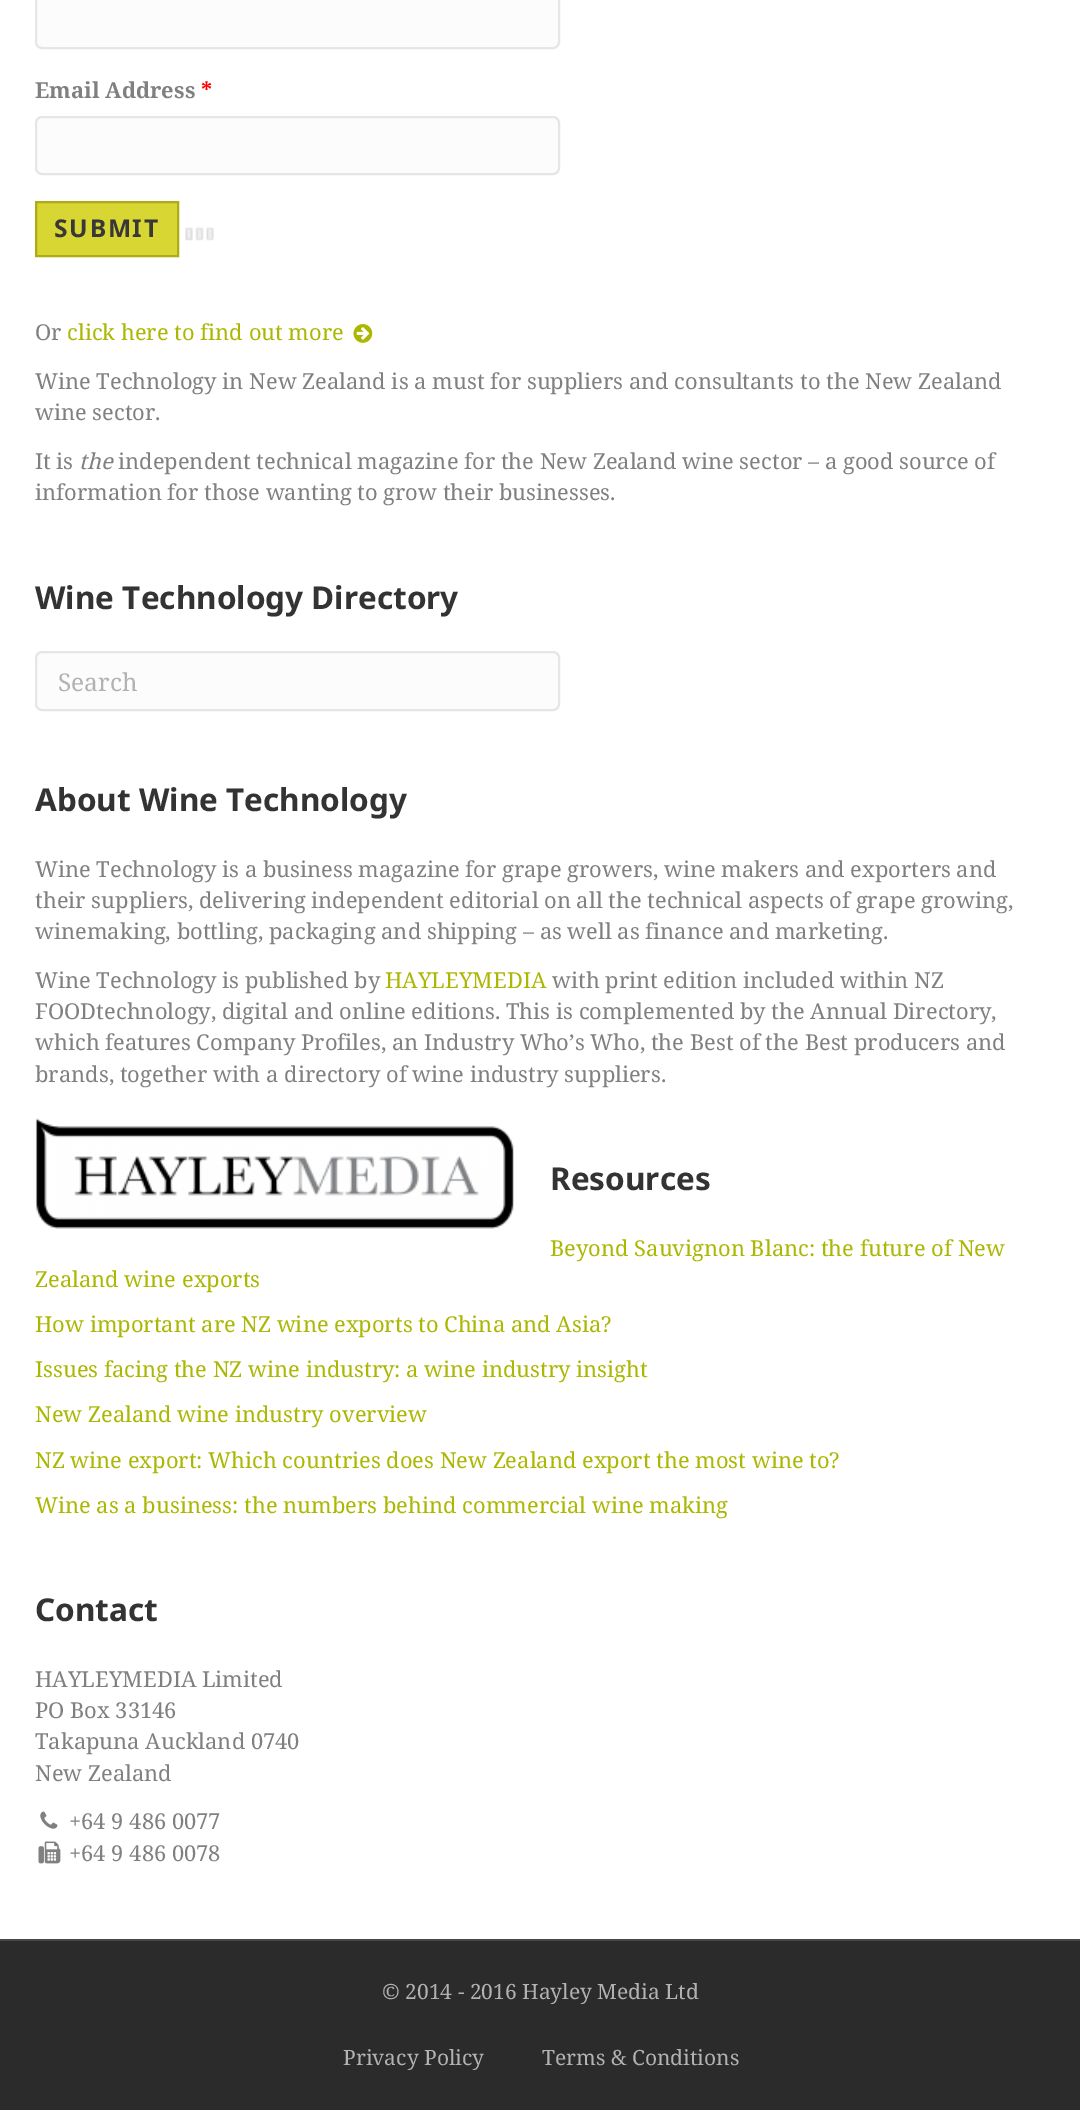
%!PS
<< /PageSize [1080 2110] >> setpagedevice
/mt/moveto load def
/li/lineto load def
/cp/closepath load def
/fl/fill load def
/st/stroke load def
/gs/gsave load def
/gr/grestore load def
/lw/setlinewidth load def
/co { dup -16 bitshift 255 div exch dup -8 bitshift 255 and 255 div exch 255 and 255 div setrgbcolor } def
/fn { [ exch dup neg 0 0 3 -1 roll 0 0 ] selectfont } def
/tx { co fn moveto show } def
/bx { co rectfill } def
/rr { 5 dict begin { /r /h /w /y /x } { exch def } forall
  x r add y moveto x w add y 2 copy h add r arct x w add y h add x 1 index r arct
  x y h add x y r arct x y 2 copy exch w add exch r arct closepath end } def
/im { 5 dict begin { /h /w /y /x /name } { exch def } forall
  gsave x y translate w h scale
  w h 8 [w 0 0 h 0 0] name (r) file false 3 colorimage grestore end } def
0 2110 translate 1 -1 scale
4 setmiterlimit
0 0 1080 2110 16#FFFFFF bx
16#FCFCFC co
36 -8 523 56 6 rr gs fl gr
16#E6E6E6 co
2 lw
st
16#FCFCFC co
36 117 523 57 6 rr gs fl gr
16#E6E6E6 co
st
16#D8D632 co
36 202 mt 178 202 li 178 256 li 36 256 li cp gs fl gr
16#AEAC14 co
st
(media/1.raw) 185 227 29 14 im
(media/2.raw) 353 324 20 19 im
16#FCFCFC co
36 652 523 58 6 rr gs fl gr
16#E6E6E6 co
st
(media/3.raw) 35 1118 479 111 im
(media/4.raw) 40 1811 18 18 im
(media/5.raw) 38 1841 23 23 im
0 1941 1080 169 16#2B2B2B bx
0 1939 1080 2 16#474747 bx
(Email Address) 35 98 /NotoSerif-Bold 21.9 16#808080 tx
(*) 201 98 /NotoSerif-Bold 21.9 16#FF0000 tx
/NotoSans-Bold 24.5 fn
16#393838 co
54 237 mt 1.75 0 (SUBMIT) ashow
(Or) 35 340 /NotoSerif-Regular 21.9 16#808080 tx
(click here to find out more) 67 340 /NotoSerif-Regular 21.9 16#ABB701 tx
(Wine Technology in New Zealand is a must for suppliers and consultants to the New Zealand) 35 389 /NotoSerif-Regular 21.9 16#808080 tx
(wine sector.) 35 420 /NotoSerif-Regular 21.9 16#808080 tx
(It is) 35 469 /NotoSerif-Regular 21.9 16#808080 tx
(the) 79 469 /NotoSerif-Italic 21.9 16#808080 tx
(independent technical magazine for the New Zealand wine sector – a good source of) 118 469 /NotoSerif-Regular 21.9 16#808080 tx
(information for those wanting to grow their businesses.) 35 500 /NotoSerif-Regular 21.9 16#808080 tx
(Wine Technology Directory) 35 609 /NotoSans-Bold 31.5 16#333333 tx
(Search) 58 691 /NotoSerif-Regular 24.5 16#B2B2B2 tx
(About Wine Technology) 35 811 /NotoSans-Bold 31.5 16#333333 tx
(Wine Technology is a business magazine for grape growers, wine makers and exporters and) 35 877 /NotoSerif-Regular 21.9 16#808080 tx
(their suppliers, delivering independent editorial on all the technical aspects of grape growing,) 35 908 /NotoSerif-Regular 21.9 16#808080 tx
(winemaking, bottling, packaging and shipping – as well as finance and marketing.) 35 939 /NotoSerif-Regular 21.9 16#808080 tx
(Wine Technology is published by) 35 988 /NotoSerif-Regular 21.9 16#808080 tx
(HAYLEYMEDIA) 385 988 /NotoSerif-Regular 21.9 16#ABB701 tx
(with print edition included within NZ) 552 988 /NotoSerif-Regular 21.9 16#808080 tx
(FOODtechnology, digital and online editions. This is complemented by the Annual Directory,) 35 1019 /NotoSerif-Regular 21.9 16#808080 tx
(which features Company Profiles, an Industry Who’s Who, the Best of the Best producers and) 35 1050 /NotoSerif-Regular 21.9 16#808080 tx
(brands, together with a directory of wine industry suppliers.) 35 1082 /NotoSerif-Regular 21.9 16#808080 tx
(Resources) 550 1190 /NotoSans-Bold 31.5 16#333333 tx
(Beyond Sauvignon Blanc: the future of New) 550 1256 /NotoSerif-Regular 21.9 16#ABB701 tx
(Zealand wine exports) 35 1287 /NotoSerif-Regular 21.9 16#ABB701 tx
(How important are NZ wine exports to China and Asia?) 35 1332 /NotoSerif-Regular 21.9 16#ABB701 tx
(Issues facing the NZ wine industry: a wine industry insight) 35 1377 /NotoSerif-Regular 21.9 16#ABB701 tx
(New Zealand wine industry overview) 35 1422 /NotoSerif-Regular 21.9 16#ABB701 tx
(NZ wine export: Which countries does New Zealand export the most wine to?) 35 1468 /NotoSerif-Regular 21.9 16#ABB701 tx
(Wine as a business: the numbers behind commercial wine making) 35 1513 /NotoSerif-Regular 21.9 16#ABB701 tx
(Contact) 35 1621 /NotoSans-Bold 31.5 16#333333 tx
(HAYLEYMEDIA Limited) 35 1687 /NotoSerif-Regular 21.9 16#808080 tx
(PO Box 33146) 35 1718 /NotoSerif-Regular 21.9 16#808080 tx
(Takapuna Auckland 0740) 35 1749 /NotoSerif-Regular 21.9 16#808080 tx
(New Zealand) 35 1781 /NotoSerif-Regular 21.9 16#808080 tx
(+64 9 486 0077) 69 1829 /NotoSerif-Regular 21.9 16#808080 tx
(+64 9 486 0078) 69 1861 /NotoSerif-Regular 21.9 16#808080 tx
(© 2014 - 2016 Hayley Media Ltd) 382 1999 /NotoSerif-Regular 21 16#B2B2B2 tx
(Privacy Policy) 343 2065 /NotoSerif-Regular 21 16#B2B2B2 tx
(Terms & Conditions) 542 2065 /NotoSerif-Regular 21 16#B2B2B2 tx
showpage
